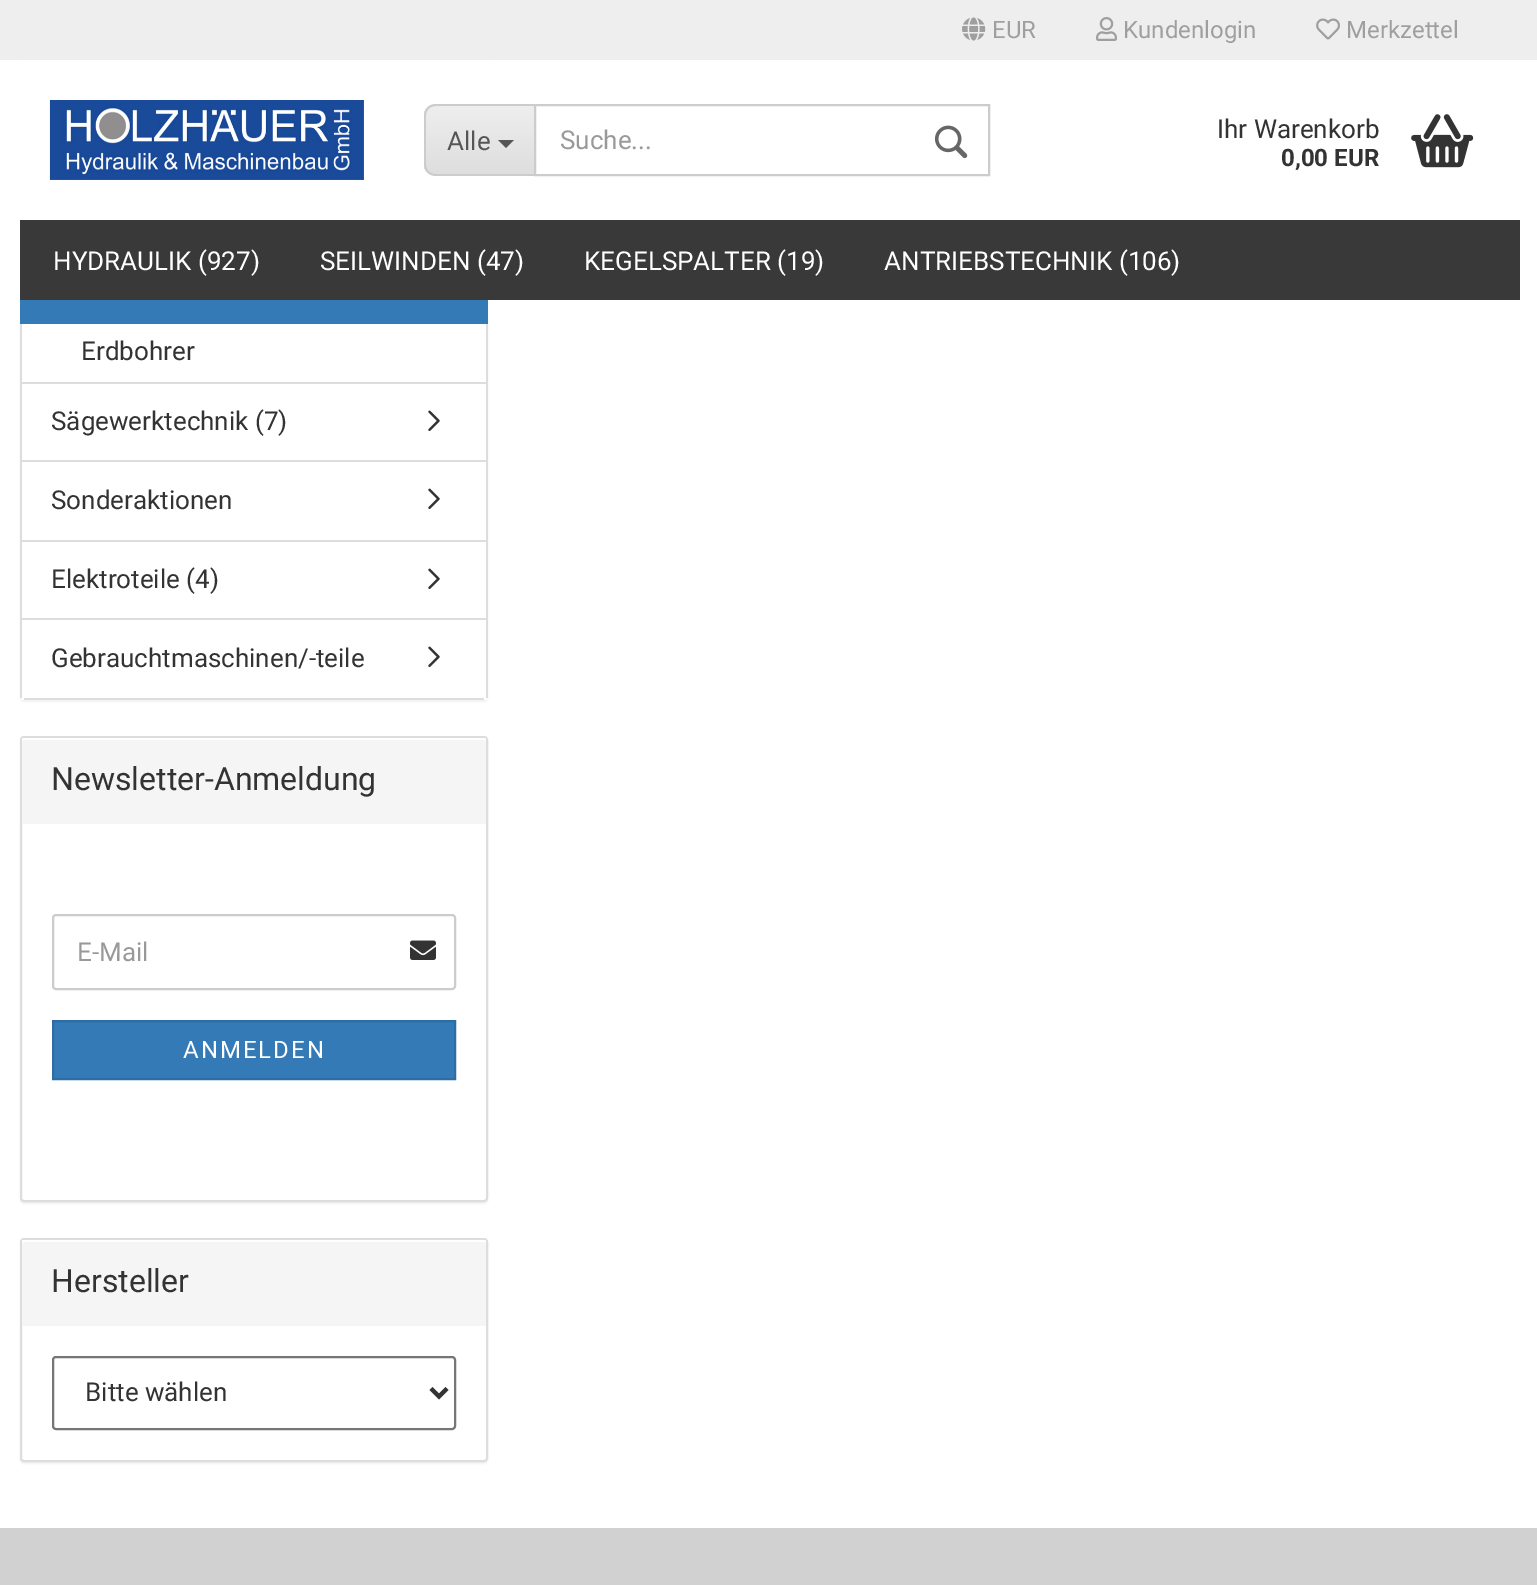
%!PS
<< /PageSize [1537 1585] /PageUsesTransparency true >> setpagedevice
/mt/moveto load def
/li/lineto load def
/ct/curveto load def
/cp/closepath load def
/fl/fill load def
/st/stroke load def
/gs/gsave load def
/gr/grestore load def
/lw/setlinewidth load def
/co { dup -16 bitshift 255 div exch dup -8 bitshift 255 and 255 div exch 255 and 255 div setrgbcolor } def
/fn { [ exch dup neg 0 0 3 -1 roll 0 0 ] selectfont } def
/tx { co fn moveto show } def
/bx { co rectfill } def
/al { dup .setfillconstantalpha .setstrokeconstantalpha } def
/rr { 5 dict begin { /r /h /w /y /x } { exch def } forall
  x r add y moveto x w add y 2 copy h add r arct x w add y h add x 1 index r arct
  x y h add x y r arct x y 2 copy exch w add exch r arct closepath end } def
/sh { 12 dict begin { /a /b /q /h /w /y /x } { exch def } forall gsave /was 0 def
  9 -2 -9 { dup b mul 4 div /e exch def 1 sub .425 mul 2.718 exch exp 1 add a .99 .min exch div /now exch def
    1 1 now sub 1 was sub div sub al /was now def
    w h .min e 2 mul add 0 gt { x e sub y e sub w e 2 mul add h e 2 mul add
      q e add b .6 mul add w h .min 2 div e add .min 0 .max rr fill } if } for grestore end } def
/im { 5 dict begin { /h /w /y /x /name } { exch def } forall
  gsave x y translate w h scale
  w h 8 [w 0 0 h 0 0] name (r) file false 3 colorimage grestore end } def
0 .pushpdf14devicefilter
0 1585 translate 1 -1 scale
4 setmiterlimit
0 0 1537 1585 16#FFFFFF bx
16#000000 co
20 -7 468 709 4 1 .05 sh
16#FFFFFF co
20 -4 468 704 4 rr fl
19 60 470 240 16#FFFFFF bx
0 0 1537 60 16#EEEEEE bx
(media/1.raw) 962 17 24 24 im
(media/2.raw) 1096 17 21 24 im
(media/3.raw) 1316 18 24 22 im
(media/4.raw) 49 100 315 80 im
gs
436 104 mt 534 104 li 534 176 li 436 176 li 429.5 176 424 170.5 424 164 ct 424 116 li 424 109.5 429.5 104 436 104 ct cp clip newpath
gs 424 106 mt 534 106 li 534 174 li 424 174 li cp clip newpath
<< /ShadingType 2 /ColorSpace /DeviceRGB /Coords [480 106 480 174] /Extend [true true] /Function << /FunctionType 2 /Domain [0 1] /C0 [.933 .933 .933] /C1 [.871 .871 .871] /N 1 >> >> shfill gr
gr
16#CCCCCC co
436 104 mt 534 104 li 534 176 li 436 176 li 429 176 424 171 424 164 ct 424 116 li 424 109 429 104 436 104 ct cp 436 106 mt 534 106 li 534 174 li 436 174 li 430 174 426 170 426 164 ct 426 116 li 426 110 430 106 436 106 ct cp eofill
16#555555 co
498 140 mt 514 140 li 506 148 li cp fl
16#CCCCCC co
2 lw
535 105 454 70 rectstroke
(media/5.raw) 934 125 34 34 im
(media/6.raw) 1411 114 63 54 im
20 220 1500 80 16#393939 bx
486 324 2 374 16#DDDDDD bx
20 324 2 374 16#DDDDDD bx
22 382 464 2 16#DDDDDD bx
20 300 468 24 16#337AB7 bx
22 460 464 2 16#DDDDDD bx
(media/7.raw) 428 410 12 21 im
22 540 464 2 16#DDDDDD bx
(media/7.raw) 428 488 12 21 im
22 618 464 2 16#DDDDDD bx
(media/7.raw) 428 568 12 21 im
24 698 460 2 16#DDDDDD bx
(media/7.raw) 428 646 12 21 im
16#000000 co
20 738 468 466 4 1 .05 sh
16#FFFFFF co
21 737 466 464 3 rr gs fl gr
16#DDDDDD co
st
16#F5F5F5 co
24 738 mt 484 738 li 485 738 486 739 486 740 ct 486 824 li 22 824 li 22 740 li 22 739 23 738 24 738 ct cp fl
16#FFFFFF co
24 740 mt 484 740 li 485 740 486 741 486 742 ct 486 739 li 485 738 li 24 738 li 22 738 22 740 22 742 ct 22 741 23 740 24 740 ct cp fl
16#CCCCCC co
53 915 402 74 3 rr st
(media/8.raw) 410 940 26 20 im
16#337AB7 co
53 1021 mt 455 1021 li 455 1079 li 53 1079 li cp gs fl gr
16#2D6DA3 co
st
16#000000 co
20 1240 468 224 4 1 .05 sh
16#FFFFFF co
21 1239 466 222 3 rr gs fl gr
16#DDDDDD co
st
16#F5F5F5 co
24 1240 mt 484 1240 li 485 1240 486 1241 486 1242 ct 486 1326 li 22 1326 li 22 1242 li 22 1241 23 1240 24 1240 ct cp fl
16#FFFFFF co
24 1242 mt 484 1242 li 485 1242 486 1243 486 1244 ct 486 1241 li 485 1240 li 24 1240 li 22 1240 22 1242 22 1244 ct 22 1243 23 1242 24 1242 ct cp fl
16#767676 co
53 1357 402 72 3 rr st
16#333333 co
4 lw
431 1388.5 mt 439 1396.5 li 447 1388.5 li st
0 1528 1537 57 16#D1D1D1 bx
(EUR) 992 38 /Roboto-Regular 24 16#9F9F9F tx
(Kundenlogin) 1123 38 /Roboto-Regular 24 16#9F9F9F tx
(Merkzettel) 1346 38 /Roboto-Regular 24 16#9F9F9F tx
(Alle) 447 150 /Roboto-Regular 26 16#555555 tx
(Suche...) 560 149 /Roboto-Regular 26 16#999999 tx
(Ihr Warenkorb) 1217 138 /Roboto-Regular 26 16#333333 tx
(0,00 EUR) 1281 166 /Roboto-Bold 24 16#333333 tx
(HYDRAULIK \(927\)) 53 270 /Roboto-Regular 26 16#FFFFFF tx
(SEILWINDEN \(47\)) 320 270 /Roboto-Regular 26 16#FFFFFF tx
(KEGELSPALTER \(19\)) 584 270 /Roboto-Regular 26 16#FFFFFF tx
(ANTRIEBSTECHNIK \(106\)) 884 270 /Roboto-Regular 26 16#FFFFFF tx
(Erdbohrer) 81 360 /Roboto-Regular 26 16#333333 tx
(Sägewerktechnik \(7\)) 51 430 /Roboto-Regular 26 16#333333 tx
(Sonderaktionen) 51 509 /Roboto-Regular 26 16#333333 tx
(Elektroteile \(4\)) 51 588 /Roboto-Regular 26 16#333333 tx
(Gebrauchtmaschinen/-teile) 51 667 /Roboto-Regular 26 16#333333 tx
(Newsletter-Anmeldung) 51 790 /Roboto-Regular 32 16#333333 tx
(E-Mail) 77 961 /Roboto-Regular 26 16#999999 tx
/Roboto-Regular 24 fn
16#FFFFFF co
183 1058 mt 2 0 (ANMELDEN) ashow
(Hersteller) 51 1292 /Roboto-Regular 32 16#333333 tx
(Bitte wählen) 85 1401 /Roboto-Regular 26 16#333333 tx
.poppdf14devicefilter showpage
